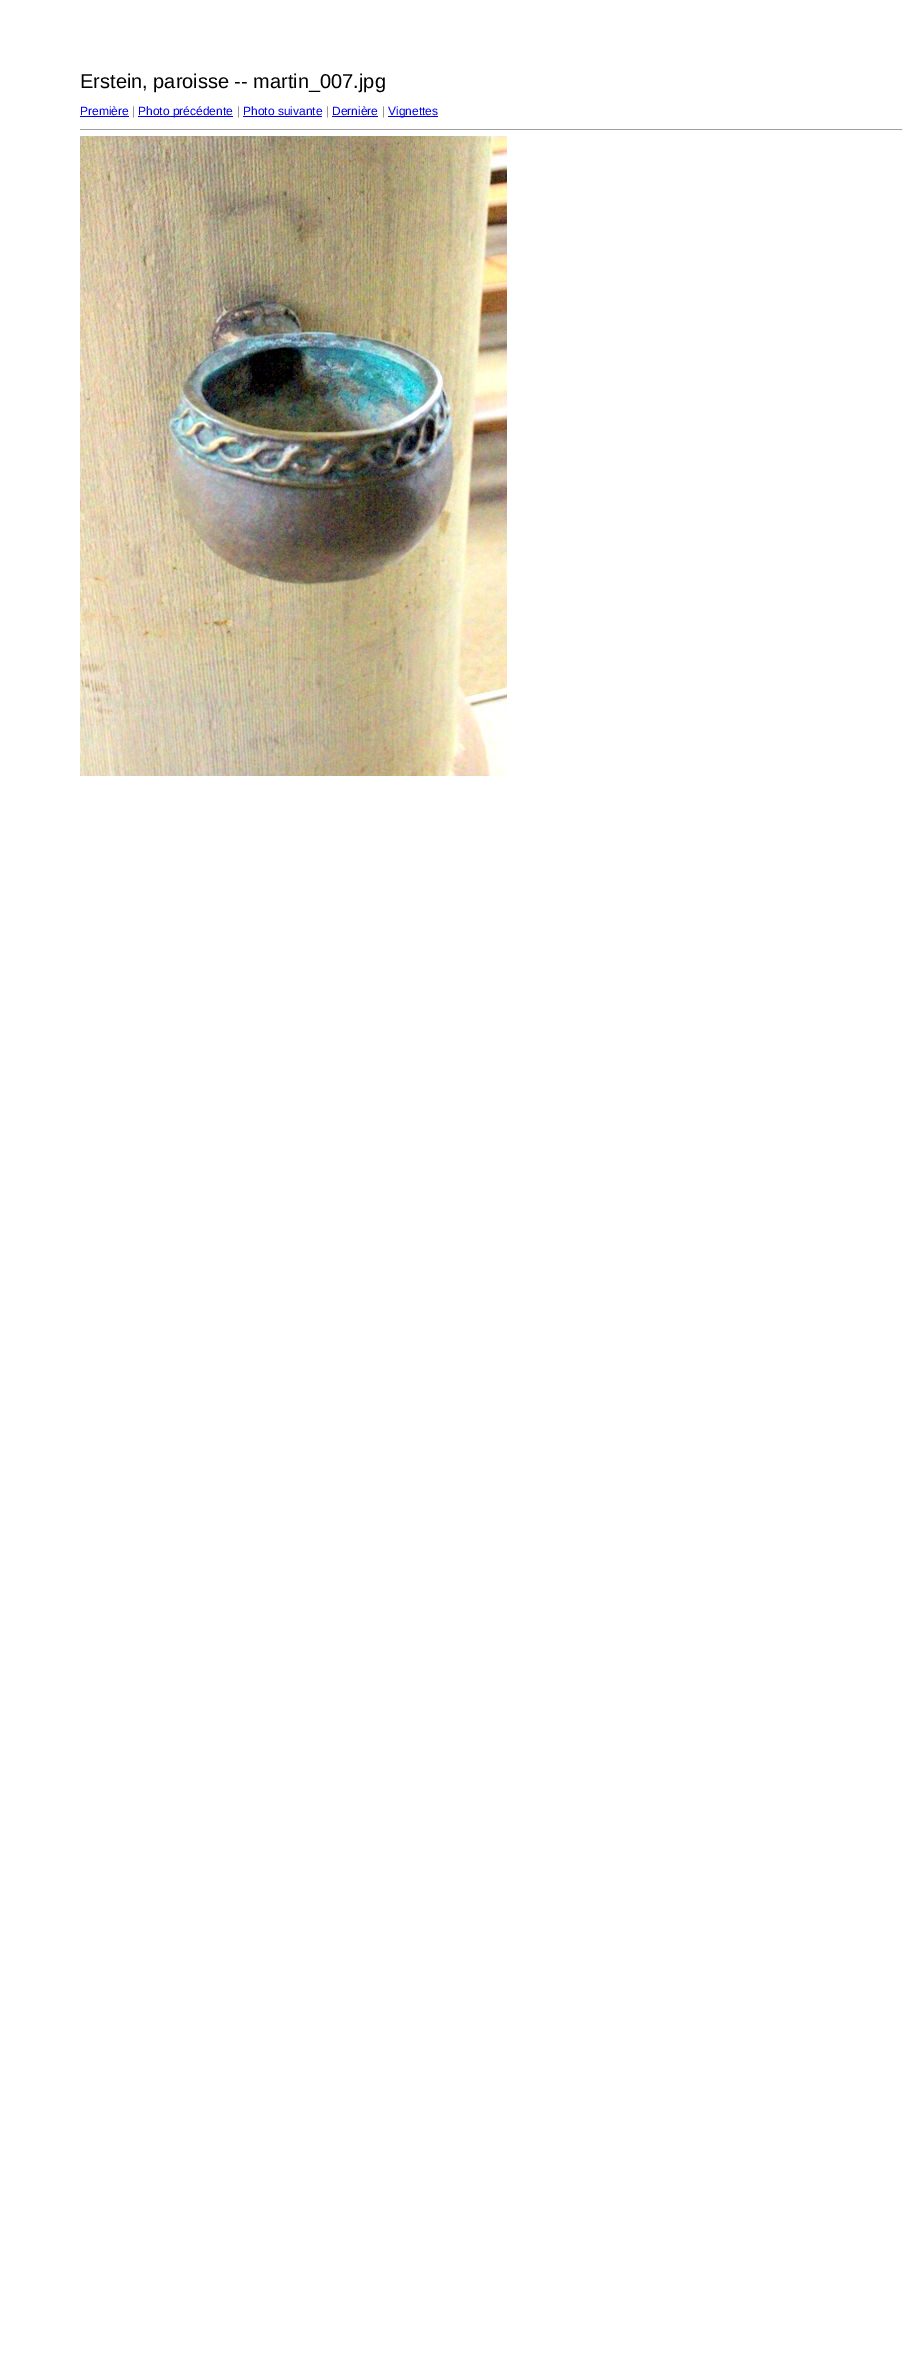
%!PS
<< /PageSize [911 2361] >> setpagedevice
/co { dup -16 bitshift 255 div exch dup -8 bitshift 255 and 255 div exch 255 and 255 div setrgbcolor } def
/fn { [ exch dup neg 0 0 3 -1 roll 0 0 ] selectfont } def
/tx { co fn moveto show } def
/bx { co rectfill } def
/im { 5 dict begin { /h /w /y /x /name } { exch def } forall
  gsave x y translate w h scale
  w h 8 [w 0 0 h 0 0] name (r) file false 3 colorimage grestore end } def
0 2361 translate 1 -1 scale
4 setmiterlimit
0 0 911 2361 16#FFFFFF bx
80 116 49 1 16#0000EE bx
138 116 95 1 16#0000EE bx
243 116 79 1 16#0000EE bx
332 116 46 1 16#0000EE bx
388 116 50 1 16#0000EE bx
80 129 823 1 16#9F9F9F bx
902 129 1 1 16#EEEEEE bx
(media/1.raw) 80 136 427 640 im
(Erstein, paroisse -- martin_007.jpg) 80 88 /LiberationSans-Regular 20 16#000000 tx
(Première) 80 115 /LiberationSans-Regular 12 16#0000EE tx
(|) 132 115 /LiberationSans-Regular 12 16#979797 tx
(Photo précédente) 138 115 /LiberationSans-Regular 12 16#0000EE tx
(|) 237 115 /LiberationSans-Regular 12 16#979797 tx
(Photo suivante) 243 115 /LiberationSans-Regular 12 16#0000EE tx
(|) 326 115 /LiberationSans-Regular 12 16#979797 tx
(Dernière) 332 115 /LiberationSans-Regular 12 16#0000EE tx
(|) 382 115 /LiberationSans-Regular 12 16#979797 tx
(Vignettes) 388 115 /LiberationSans-Regular 12 16#0000EE tx
showpage
